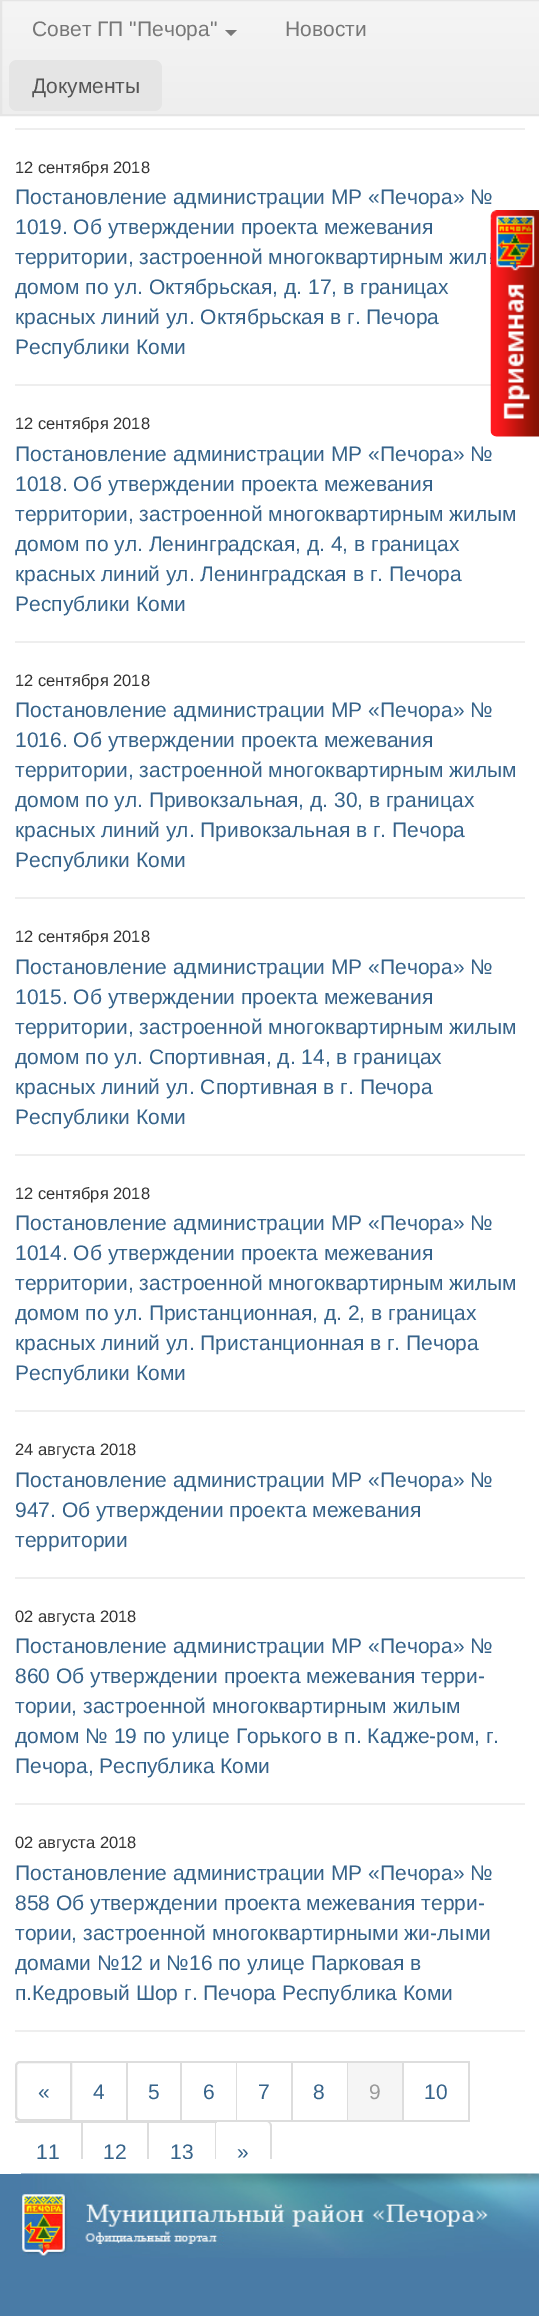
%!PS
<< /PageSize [539 2316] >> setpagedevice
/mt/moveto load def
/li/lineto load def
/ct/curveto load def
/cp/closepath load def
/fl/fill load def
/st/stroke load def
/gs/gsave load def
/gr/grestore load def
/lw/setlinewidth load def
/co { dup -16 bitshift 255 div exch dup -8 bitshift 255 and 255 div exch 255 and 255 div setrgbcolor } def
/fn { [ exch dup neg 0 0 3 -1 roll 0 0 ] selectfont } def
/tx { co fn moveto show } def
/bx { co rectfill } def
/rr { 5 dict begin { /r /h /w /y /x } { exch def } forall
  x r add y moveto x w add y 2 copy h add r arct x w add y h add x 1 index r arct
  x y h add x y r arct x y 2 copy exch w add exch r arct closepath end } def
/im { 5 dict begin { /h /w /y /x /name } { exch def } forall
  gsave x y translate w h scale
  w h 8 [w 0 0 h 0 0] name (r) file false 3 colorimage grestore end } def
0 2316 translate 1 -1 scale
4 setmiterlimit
0 0 539 2316 16#497BA6 bx
0 116 539 2058 16#FFFFFF bx
gs 2 1 mt 539 1 li 539 114 li 2 114 li cp clip newpath
<< /ShadingType 2 /ColorSpace /DeviceRGB /Coords [279 0 279 114] /Extend [true true] /Function << /FunctionType 2 /Domain [0 1] /C0 [.961 .961 .961] /C1 [.933 .933 .933] /N 1 >> >> shfill gr
16#E5E5E5 co
2 lw
1 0 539 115 rectstroke
16#777777 co
225 30 mt 237 30 li 231 36 li cp fl
16#E5E5E5 co
9 60 153 51 8 rr fl
15 128 510 2 16#EEEEEE bx
15 384 476 2 16#EEEEEE bx
15 641 510 2 16#EEEEEE bx
15 897 510 2 16#EEEEEE bx
15 1154 510 2 16#EEEEEE bx
15 1410 510 2 16#EEEEEE bx
15 1577 510 2 16#EEEEEE bx
15 1803 510 2 16#EEEEEE bx
15 2030 510 2 16#EEEEEE bx
16#DDDDDD co
20 2062 mt 71 2062 li 71 2120 li 20 2120 li 18 2120 16 2118 16 2116 ct 16 2066 li 16 2064 18 2062 20 2062 ct cp st
72 2061 398 2 16#DDDDDD bx
126 2061 2 60 16#DDDDDD bx
72 2120 56 1 16#DDDDDD bx
180 2061 2 60 16#DDDDDD bx
128 2120 54 1 16#DDDDDD bx
236 2061 1 60 16#DDDDDD bx
182 2120 55 1 16#DDDDDD bx
291 2061 2 60 16#DDDDDD bx
237 2120 56 2 16#DDDDDD bx
347 2061 1 60 16#DDDDDD bx
293 2120 55 2 16#DDDDDD bx
348 2063 54 57 16#F5F5F5 bx
402 2061 2 60 16#DDDDDD bx
348 2120 56 2 16#DDDDDD bx
468 2061 2 60 16#DDDDDD bx
404 2120 66 2 16#DDDDDD bx
15 2121 201 2 16#DDDDDD bx
81 2121 2 38 16#DDDDDD bx
147 2121 2 38 16#DDDDDD bx
215 2121 2 38 16#DDDDDD bx
16#FFFFFF co
216 2123 mt 267 2123 li 268.5 2123 270 2124.5 270 2126 ct 270 2159 li 216 2159 li cp fl
gs
15 0 510 2159 rectclip
16#DDDDDD co
216 2121 mt 267 2121 li 269 2121 272 2123 272 2126 ct 272 2176 li 272 2179 269 2181 267 2181 ct 216 2181 li cp 216 2122 mt 267 2122 li 269 2122 270 2124 270 2126 ct 270 2176 li 270 2178 269 2180 267 2180 ct 216 2180 li cp eofill
gr
(media/1.raw) 490 210 49 227 im
(media/2.raw) 21 2173 518 85 im
(Совет ГП "Печора") 32 36 /LiberationSans-Regular 21 16#777777 tx
(Новости) 285 36 /LiberationSans-Regular 21 16#777777 tx
(Документы) 32 93 /LiberationSans-Regular 21 16#555555 tx
(12 сентября 2018) 15 173 /LiberationSans-Regular 16.5 16#333333 tx
(Постановление администрации МР «Печора» №) 15 204 /LiberationSans-Regular 21 16#36638A tx
(1019. Об утверждении проекта межевания) 15 234 /LiberationSans-Regular 21 16#36638A tx
(территории, застроенной многоквартирным жил) 15 264 /LiberationSans-Regular 21 16#36638A tx
(домом по ул. Октябрьская, д. 17, в границах) 15 294 /LiberationSans-Regular 21 16#36638A tx
(красных линий ул. Октябрьская в г. Печора) 15 324 /LiberationSans-Regular 21 16#36638A tx
(Республики Коми) 15 354 /LiberationSans-Regular 21 16#36638A tx
(12 сентября 2018) 15 429 /LiberationSans-Regular 16.5 16#333333 tx
(Постановление администрации МР «Печора» №) 15 461 /LiberationSans-Regular 21 16#36638A tx
(1018. Об утверждении проекта межевания) 15 491 /LiberationSans-Regular 21 16#36638A tx
(территории, застроенной многоквартирным жилым) 15 521 /LiberationSans-Regular 21 16#36638A tx
(домом по ул. Ленинградская, д. 4, в границах) 15 551 /LiberationSans-Regular 21 16#36638A tx
(красных линий ул. Ленинградская в г. Печора) 15 581 /LiberationSans-Regular 21 16#36638A tx
(Республики Коми) 15 611 /LiberationSans-Regular 21 16#36638A tx
(12 сентября 2018) 15 686 /LiberationSans-Regular 16.5 16#333333 tx
(Постановление администрации МР «Печора» №) 15 717 /LiberationSans-Regular 21 16#36638A tx
(1016. Об утверждении проекта межевания) 15 747 /LiberationSans-Regular 21 16#36638A tx
(территории, застроенной многоквартирным жилым) 15 777 /LiberationSans-Regular 21 16#36638A tx
(домом по ул. Привокзальная, д. 30, в границах) 15 807 /LiberationSans-Regular 21 16#36638A tx
(красных линий ул. Привокзальная в г. Печора) 15 837 /LiberationSans-Regular 21 16#36638A tx
(Республики Коми) 15 867 /LiberationSans-Regular 21 16#36638A tx
(12 сентября 2018) 15 942 /LiberationSans-Regular 16.5 16#333333 tx
(Постановление администрации МР «Печора» №) 15 974 /LiberationSans-Regular 21 16#36638A tx
(1015. Об утверждении проекта межевания) 15 1004 /LiberationSans-Regular 21 16#36638A tx
(территории, застроенной многоквартирным жилым) 15 1034 /LiberationSans-Regular 21 16#36638A tx
(домом по ул. Спортивная, д. 14, в границах) 15 1064 /LiberationSans-Regular 21 16#36638A tx
(красных линий ул. Спортивная в г. Печора) 15 1094 /LiberationSans-Regular 21 16#36638A tx
(Республики Коми) 15 1124 /LiberationSans-Regular 21 16#36638A tx
(12 сентября 2018) 15 1199 /LiberationSans-Regular 16.5 16#333333 tx
(Постановление администрации МР «Печора» №) 15 1230 /LiberationSans-Regular 21 16#36638A tx
(1014. Об утверждении проекта межевания) 15 1260 /LiberationSans-Regular 21 16#36638A tx
(территории, застроенной многоквартирным жилым) 15 1290 /LiberationSans-Regular 21 16#36638A tx
(домом по ул. Пристанционная, д. 2, в границах) 15 1320 /LiberationSans-Regular 21 16#36638A tx
(красных линий ул. Пристанционная в г. Печора) 15 1350 /LiberationSans-Regular 21 16#36638A tx
(Республики Коми) 15 1380 /LiberationSans-Regular 21 16#36638A tx
(24 августа 2018) 15 1455 /LiberationSans-Regular 16.5 16#333333 tx
(Постановление администрации МР «Печора» №) 15 1487 /LiberationSans-Regular 21 16#36638A tx
(947. Об утверждении проекта межевания) 15 1517 /LiberationSans-Regular 21 16#36638A tx
(территории) 15 1547 /LiberationSans-Regular 21 16#36638A tx
(02 августа 2018) 15 1622 /LiberationSans-Regular 16.5 16#333333 tx
(Постановление администрации МР «Печора» №) 15 1653 /LiberationSans-Regular 21 16#36638A tx
(860 Об утверждении проекта межевания терри-) 15 1683 /LiberationSans-Regular 21 16#36638A tx
(тории, застроенной многоквартирным жилым) 15 1713 /LiberationSans-Regular 21 16#36638A tx
(домом № 19 по улице Горького в п. Кадже-ром, г.) 15 1743 /LiberationSans-Regular 21 16#36638A tx
(Печора, Республика Коми) 15 1773 /LiberationSans-Regular 21 16#36638A tx
(02 августа 2018) 15 1848 /LiberationSans-Regular 16.5 16#333333 tx
(Постановление администрации МР «Печора» №) 15 1880 /LiberationSans-Regular 21 16#36638A tx
(858 Об утверждении проекта межевания терри-) 15 1910 /LiberationSans-Regular 21 16#36638A tx
(тории, застроенной многоквартирными жи-лыми) 15 1940 /LiberationSans-Regular 21 16#36638A tx
(домами №12 и №16 по улице Парковая в) 15 1970 /LiberationSans-Regular 21 16#36638A tx
(п.Кедровый Шор г. Печора Республика Коми) 15 2000 /LiberationSans-Regular 21 16#36638A tx
(«) 38 2099 /LiberationSans-Regular 21 16#36638A tx
(4) 93 2099 /LiberationSans-Regular 21 16#36638A tx
(5) 148 2099 /LiberationSans-Regular 21 16#36638A tx
(6) 203 2099 /LiberationSans-Regular 21 16#36638A tx
(7) 258 2099 /LiberationSans-Regular 21 16#36638A tx
(8) 313 2099 /LiberationSans-Regular 21 16#36638A tx
(9) 369 2099 /LiberationSans-Regular 21 16#999999 tx
(10) 424 2099 /LiberationSans-Regular 21 16#36638A tx
(11) 36 2159 /LiberationSans-Regular 21 16#36638A tx
(12) 103 2159 /LiberationSans-Regular 21 16#36638A tx
gs
15 0 510 2159 rectclip
(13) 170 2159 /LiberationSans-Regular 21 16#36638A tx
gr
(») 237 2159 /LiberationSans-Regular 21 16#36638A tx
showpage
